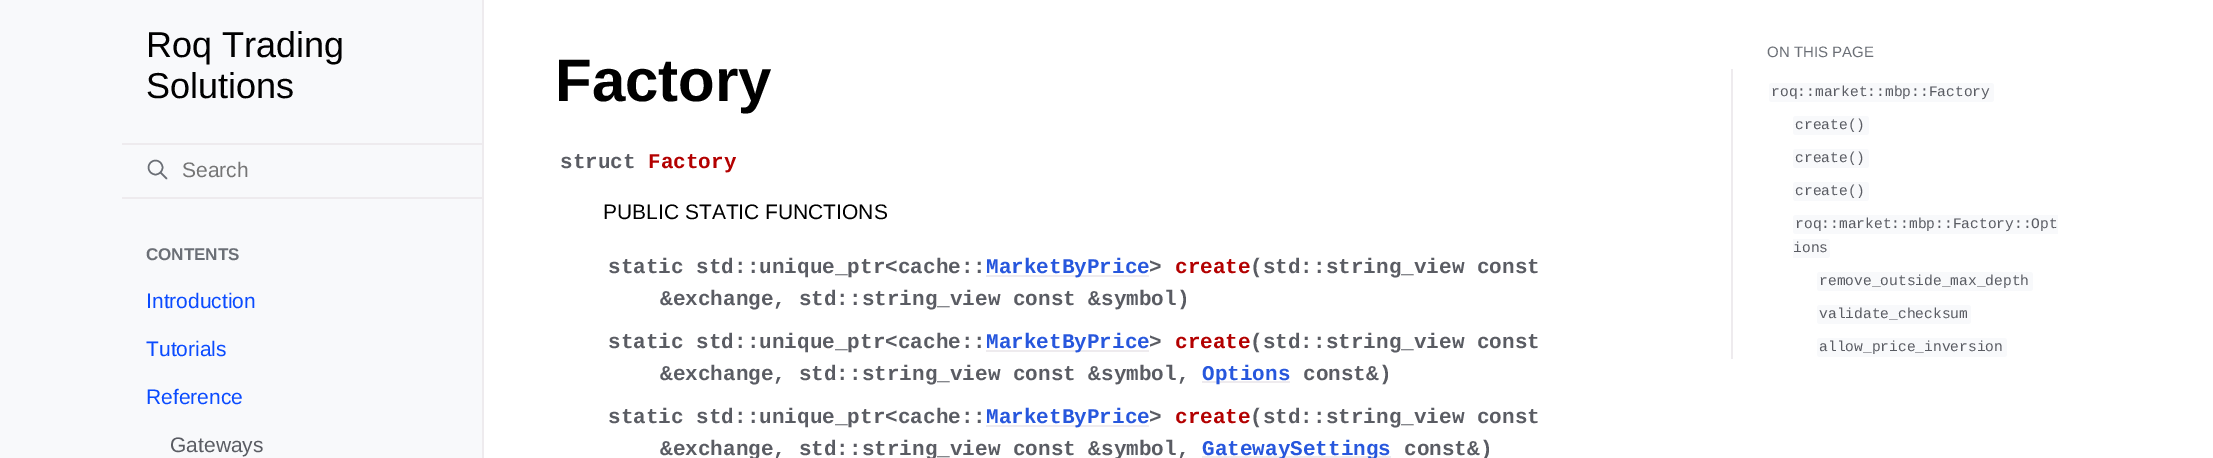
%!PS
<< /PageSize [2213 458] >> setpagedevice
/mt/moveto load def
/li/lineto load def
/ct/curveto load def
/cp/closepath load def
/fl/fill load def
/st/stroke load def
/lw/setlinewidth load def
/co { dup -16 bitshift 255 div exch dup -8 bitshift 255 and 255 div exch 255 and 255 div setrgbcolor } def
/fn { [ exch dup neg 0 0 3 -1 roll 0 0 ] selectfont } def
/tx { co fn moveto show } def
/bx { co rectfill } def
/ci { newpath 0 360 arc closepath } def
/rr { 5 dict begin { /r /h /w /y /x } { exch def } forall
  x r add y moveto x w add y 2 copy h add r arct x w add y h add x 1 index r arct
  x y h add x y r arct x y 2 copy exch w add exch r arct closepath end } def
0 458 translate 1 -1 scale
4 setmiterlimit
0 0 2213 458 16#FFFFFF bx
0 0 482 458 16#F8F9FB bx
482 0 2 458 16#EEEBEE bx
16#6B6F76 co
1.5 lw
155.5 167.5 7 ci st
1 setlinecap
1 setlinejoin
166.5 178.5 mt 160.5 172.5 li st
122 143 360 2 16#EEEBEE bx
122 197 360 2 16#EEEBEE bx
986 275 163 2 16#EEEBEE bx
986 350 163 2 16#EEEBEE bx
1202 381 88 2 16#EEEBEE bx
986 425 163 2 16#EEEBEE bx
1202 456 189 2 16#EEEBEE bx
1731 69 2 290 16#EEEBEE bx
16#F8F9FB co
1769 83 225 19 3 rr fl
1793 116 76 19 3 rr fl
1793 149 76 19 3 rr fl
1793 182 76 19 3 rr fl
1796 215 mt 2058 215 li 2058 234 li 1796 234 li 1794.5 234 1793 232.5 1793 231 ct 1793 218 li 1793 216.5 1794.5 215 1796 215 ct cp fl
1793 239 mt 1827 239 li 1828.5 239 1830 240.5 1830 242 ct 1830 255 li 1830 256.5 1828.5 258 1827 258 ct 1793 258 li cp fl
1817 272 216 19 3 rr fl
1817 305 154 19 3 rr fl
1817 338 190 19 3 rr fl
(Roq Trading) 146 57 /LiberationSans-Regular 36 16#000000 tx
(Solutions) 146 98 /LiberationSans-Regular 36 16#000000 tx
(Search) 182 177 /LiberationSans-Regular 21 16#757575 tx
(CONTENTS) 146 260 /LiberationSans-Bold 17 16#6B6F76 tx
(Introduction) 146 308 /LiberationSans-Regular 21 16#0A4BFF tx
(Tutorials) 146 356 /LiberationSans-Regular 21 16#0A4BFF tx
(Reference) 146 404 /LiberationSans-Regular 21 16#0A4BFF tx
(Gateways) 170 452 /LiberationSans-Regular 21 16#5A5C63 tx
(Factory) 555 101 /LiberationSans-Bold 60 16#000000 tx
(struct) 560 168 /LiberationMono-Bold 21 16#5A5C63 tx
(Factory) 648 168 /LiberationMono-Bold 21 16#B30000 tx
(PUBLIC STATIC FUNCTIONS) 603 219 /LiberationSans-Regular 21 16#000000 tx
(static std::unique_ptr<cache::) 608 273 /LiberationMono-Bold 21 16#5A5C63 tx
(MarketByPrice) 986 273 /LiberationMono-Bold 21 16#2757DD tx
(>) 1149 273 /LiberationMono-Bold 21 16#5A5C63 tx
(create) 1175 273 /LiberationMono-Bold 21 16#B30000 tx
(\(std::string_view const) 1250 273 /LiberationMono-Bold 21 16#5A5C63 tx
(&exchange, std::string_view const &symbol\)) 660 305 /LiberationMono-Bold 21 16#5A5C63 tx
(static std::unique_ptr<cache::) 608 348 /LiberationMono-Bold 21 16#5A5C63 tx
(MarketByPrice) 986 348 /LiberationMono-Bold 21 16#2757DD tx
(>) 1149 348 /LiberationMono-Bold 21 16#5A5C63 tx
(create) 1175 348 /LiberationMono-Bold 21 16#B30000 tx
(\(std::string_view const) 1250 348 /LiberationMono-Bold 21 16#5A5C63 tx
(&exchange, std::string_view const &symbol,) 660 380 /LiberationMono-Bold 21 16#5A5C63 tx
(Options) 1202 380 /LiberationMono-Bold 21 16#2757DD tx
(const&\)) 1303 380 /LiberationMono-Bold 21 16#5A5C63 tx
(static std::unique_ptr<cache::) 608 423 /LiberationMono-Bold 21 16#5A5C63 tx
(MarketByPrice) 986 423 /LiberationMono-Bold 21 16#2757DD tx
(>) 1149 423 /LiberationMono-Bold 21 16#5A5C63 tx
(create) 1175 423 /LiberationMono-Bold 21 16#B30000 tx
(\(std::string_view const) 1250 423 /LiberationMono-Bold 21 16#5A5C63 tx
(&exchange, std::string_view const &symbol,) 660 455 /LiberationMono-Bold 21 16#5A5C63 tx
(GatewaySettings) 1202 455 /LiberationMono-Bold 21 16#2757DD tx
(const&\)) 1404 455 /LiberationMono-Bold 21 16#5A5C63 tx
(ON THIS PAGE) 1767 57 /LiberationSans-Regular 15 16#6B6F76 tx
(roq::market::mbp::Factory) 1771 96 /LiberationMono-Regular 14.6 16#5A5C63 tx
(create\(\)) 1795 129 /LiberationMono-Regular 14.6 16#5A5C63 tx
(create\(\)) 1795 162 /LiberationMono-Regular 14.6 16#5A5C63 tx
(create\(\)) 1795 195 /LiberationMono-Regular 14.6 16#5A5C63 tx
(roq::market::mbp::Factory::Opt) 1795 228 /LiberationMono-Regular 14.6 16#5A5C63 tx
(ions) 1793 252 /LiberationMono-Regular 14.6 16#5A5C63 tx
(remove_outside_max_depth) 1819 285 /LiberationMono-Regular 14.6 16#5A5C63 tx
(validate_checksum) 1819 318 /LiberationMono-Regular 14.6 16#5A5C63 tx
(allow_price_inversion) 1819 351 /LiberationMono-Regular 14.6 16#5A5C63 tx
showpage
